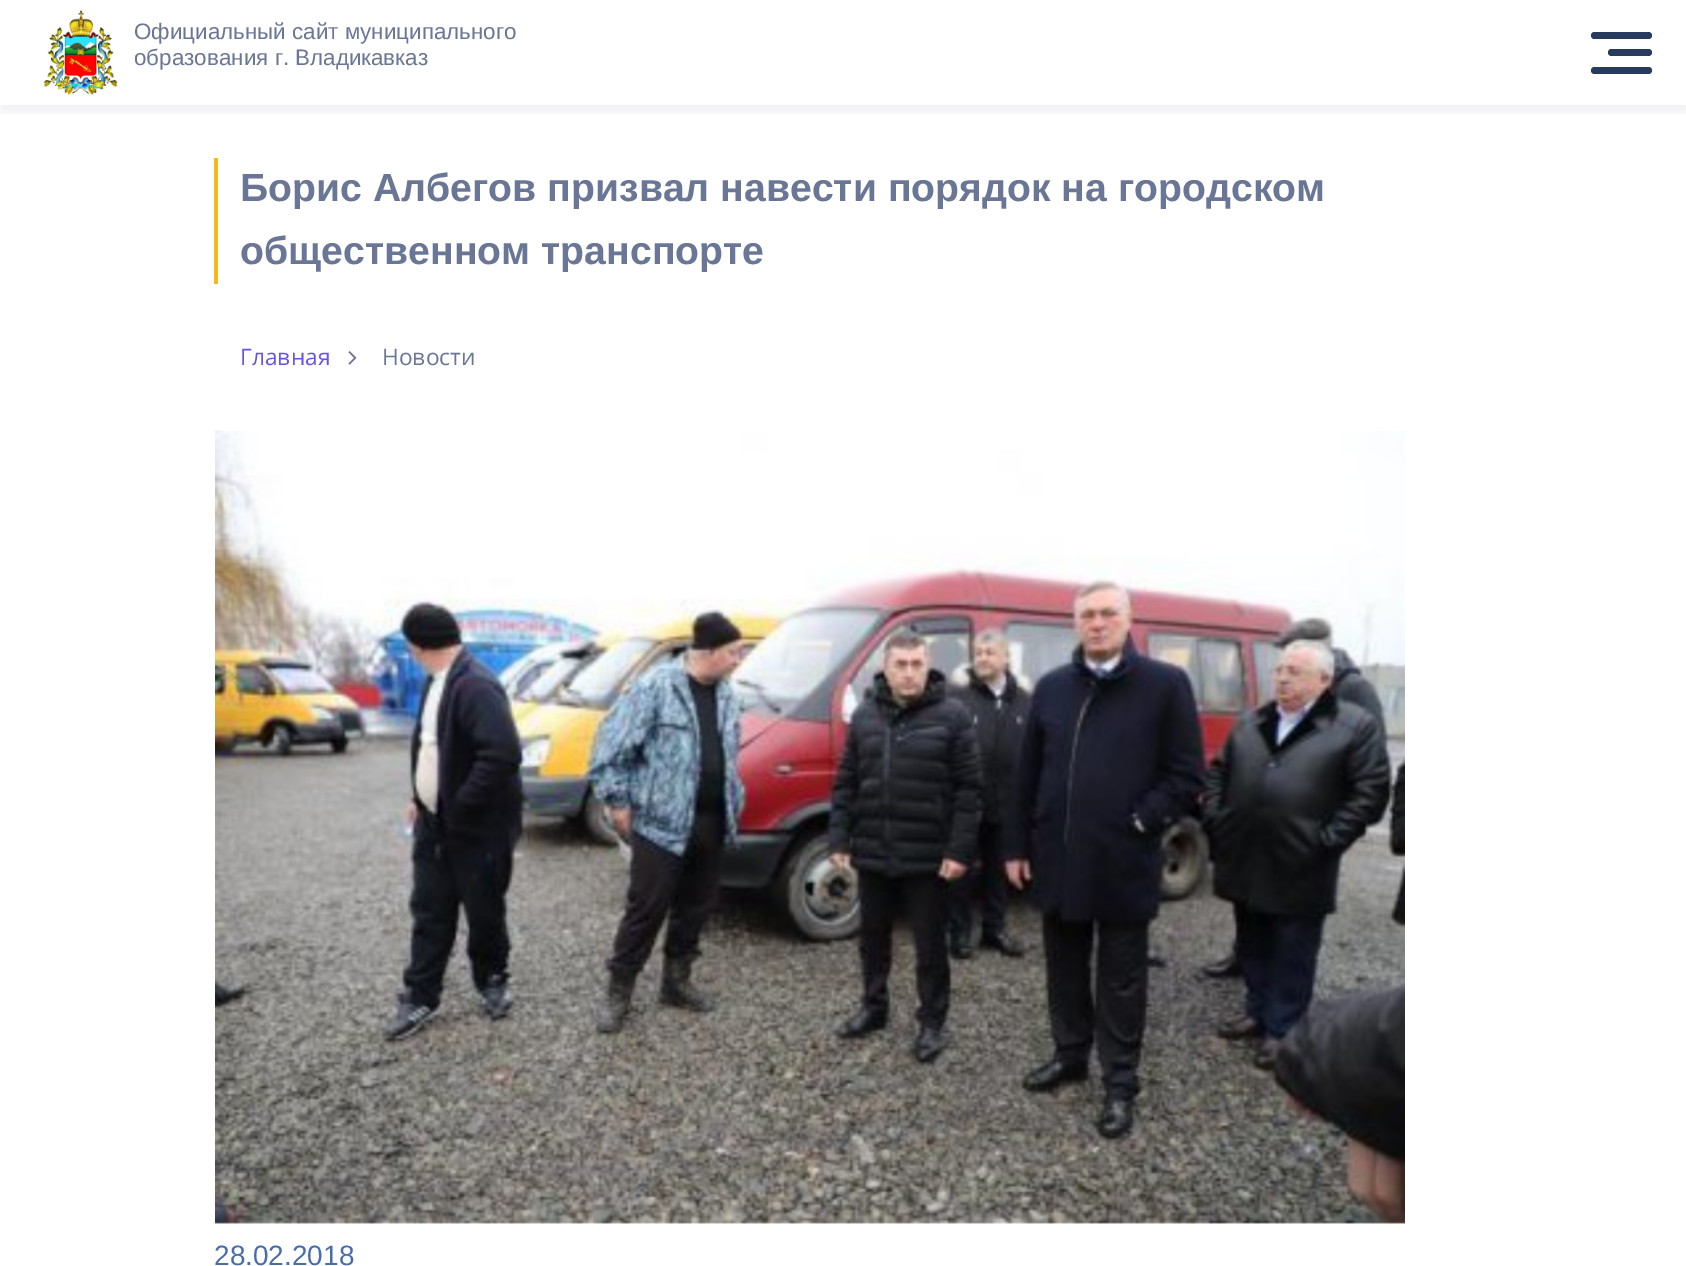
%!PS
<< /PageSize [1686 1266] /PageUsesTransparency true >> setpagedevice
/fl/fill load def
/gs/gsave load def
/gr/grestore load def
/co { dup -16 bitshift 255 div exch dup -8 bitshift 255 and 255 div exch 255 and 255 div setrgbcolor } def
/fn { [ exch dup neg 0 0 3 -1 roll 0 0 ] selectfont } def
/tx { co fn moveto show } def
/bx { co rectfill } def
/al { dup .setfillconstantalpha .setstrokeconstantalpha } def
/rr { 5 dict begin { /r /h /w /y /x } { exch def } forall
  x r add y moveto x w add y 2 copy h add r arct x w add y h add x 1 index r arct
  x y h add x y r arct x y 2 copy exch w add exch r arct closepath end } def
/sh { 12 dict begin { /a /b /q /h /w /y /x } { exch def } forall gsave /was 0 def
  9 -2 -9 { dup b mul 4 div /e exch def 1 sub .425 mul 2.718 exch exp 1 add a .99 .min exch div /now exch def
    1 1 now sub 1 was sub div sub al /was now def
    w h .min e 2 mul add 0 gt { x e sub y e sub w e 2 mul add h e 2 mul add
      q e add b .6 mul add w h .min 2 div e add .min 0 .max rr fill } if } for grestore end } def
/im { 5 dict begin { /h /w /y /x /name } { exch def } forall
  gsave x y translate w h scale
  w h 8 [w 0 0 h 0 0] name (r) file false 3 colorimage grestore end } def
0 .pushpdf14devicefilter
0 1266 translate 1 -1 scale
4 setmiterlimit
0 0 1686 1266 16#FFFFFF bx
gs
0 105 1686 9 rectclip
16#0C002E co
0 7 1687 105 0 5 .06 sh
gr
(media/1.raw) 43 10 75 85 im
16#263B5E co
1591 32 61 7 3.5 rr fl
1608 49 44 7 3.5 rr fl
1591 67 61 7 3.5 rr fl
214 158 4 126 16#F5B918 bx
(media/2.raw) 348 351 9 14 im
(media/3.raw) 215 430 1190 794 im
(Официальный сайт муниципального) 134 39 /LiberationSans-Regular 22.4 16#6A7695 tx
(образования г. Владикавказ) 134 65 /LiberationSans-Regular 22.4 16#6A7695 tx
(Борис Албегов призвал навести порядок на городском) 240 201 /LiberationSans-Bold 39.2 16#6A7695 tx
(общественном транспорте) 240 264 /LiberationSans-Bold 39.2 16#6A7695 tx
(Главная) 240 365 /OpenSans-Regular 22.75 16#6654E2 tx
(Новости) 382 365 /OpenSans-Regular 22.75 16#6A7695 tx
(28.02.2018) 214 1265 /LiberationSans-Regular 28 16#486DAA tx
.poppdf14devicefilter showpage
